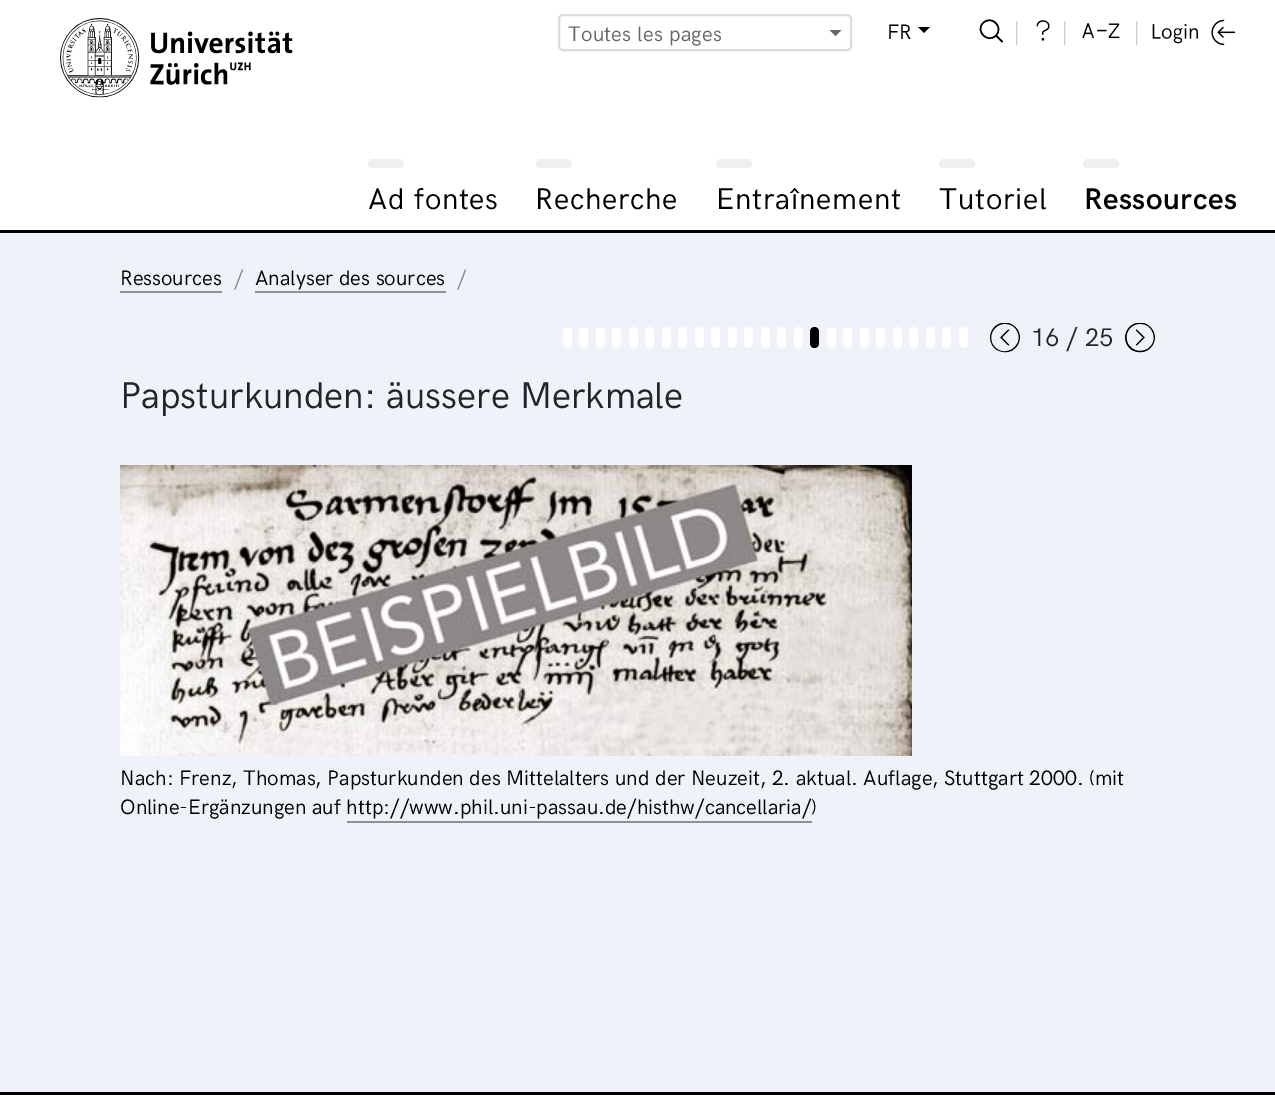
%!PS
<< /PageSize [1275 1099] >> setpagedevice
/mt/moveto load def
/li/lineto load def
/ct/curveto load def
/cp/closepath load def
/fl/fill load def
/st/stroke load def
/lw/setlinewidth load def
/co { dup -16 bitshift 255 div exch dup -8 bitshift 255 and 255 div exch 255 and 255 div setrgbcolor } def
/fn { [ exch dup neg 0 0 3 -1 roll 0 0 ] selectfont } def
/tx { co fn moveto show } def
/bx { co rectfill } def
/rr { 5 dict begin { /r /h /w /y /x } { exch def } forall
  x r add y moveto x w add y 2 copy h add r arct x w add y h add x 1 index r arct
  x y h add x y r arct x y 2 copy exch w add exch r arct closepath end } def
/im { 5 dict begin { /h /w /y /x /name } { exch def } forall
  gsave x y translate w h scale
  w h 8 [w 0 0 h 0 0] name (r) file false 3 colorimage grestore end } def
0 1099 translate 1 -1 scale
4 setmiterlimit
0 0 1275 1099 16#FFFFFF bx
0 230 1275 3 16#000000 bx
(media/1.raw) 60 18 233 80 im
16#DDDDDD co
2 lw
559 15 292 35 4 rr st
16#666666 co
829.5 30 mt 841.5 30 li 835.5 36 li cp fl
16#000000 co
918 27 mt 930 27 li 924 33 li cp fl
1.5 lw
983 23 mt 991.5 14.5 1004 27 996 35.5 ct 987.5 44 975 31 983 23 ct cp 996.5 36 mt 1002.5 42 li st
(media/2.raw) 1036 20 14 21 im
(media/3.raw) 1082 23 38 16 im
(media/4.raw) 1152 24 46 20 im
(media/5.raw) 1211 19 24 27 im
16#EFEFEF co
368 159 36 9 4.5 rr fl
536 159 36 9 4.5 rr fl
716 159 36 9 4.5 rr fl
939 159 36 9 4.5 rr fl
1083 159 36 9 4.5 rr fl
0 233 1275 859 16#EFF2F9 bx
120 291 102 2 16#909090 bx
255 291 191 2 16#909090 bx
16#FFFFFF co
563 327 9 21 4.5 rr fl
579 327 9 21 4.5 rr fl
596 327 9 21 4.5 rr fl
612 327 9 21 4.5 rr fl
629 327 9 21 4.5 rr fl
645 327 9 21 4.5 rr fl
662 327 9 21 4.5 rr fl
678 327 9 21 4.5 rr fl
695 327 9 21 4.5 rr fl
711 327 9 21 4.5 rr fl
728 327 9 21 4.5 rr fl
744 327 9 21 4.5 rr fl
761 327 9 21 4.5 rr fl
777 327 9 21 4.5 rr fl
794 327 9 21 4.5 rr fl
16#000000 co
810 327 9 21 4.5 rr fl
16#FFFFFF co
827 327 9 21 4.5 rr fl
843 327 9 21 4.5 rr fl
860 327 9 21 4.5 rr fl
876 327 9 21 4.5 rr fl
893 327 9 21 4.5 rr fl
909 327 9 21 4.5 rr fl
926 327 9 21 4.5 rr fl
942 327 9 21 4.5 rr fl
959 327 9 21 4.5 rr fl
(media/6.raw) 990 323 30 30 im
(media/7.raw) 1125 323 30 30 im
(media/8.raw) 120 465 792 291 im
347 821 465 2 16#909090 bx
0 1092 1275 3 16#000000 bx
/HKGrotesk-Regular 21 fn
16#666666 co
568 41 mt .25 0 (Toutes les pages) ashow
(FR) 887 39 /HKGrotesk-Regular 21 16#000000 tx
(|) 1013 39 /HKGrotesk-Regular 24 16#CDCDCD tx
(|) 1061 39 /HKGrotesk-Regular 24 16#CDCDCD tx
(|) 1133 39 /HKGrotesk-Regular 24 16#CDCDCD tx
/HKGrotesk-Regular 30 fn
16#000000 co
368 209 mt .75 0 (Ad fontes) ashow
535 209 mt .75 0 (Recherche) ashow
716 209 mt .75 0 (Entraînement) ashow
939 209 mt .75 0 (Tutoriel) ashow
/HKGrotesk-SemiBold 30 fn
1084 209 mt .5 0 (Ressources) ashow
(Ressources) 120 285 /HKGrotesk-Regular 21 16#000000 tx
(/) 234 285 /HKGrotesk-Regular 21 16#868E96 tx
(Analyser des sources) 255 285 /HKGrotesk-Regular 21 16#000000 tx
(/) 457 285 /HKGrotesk-Regular 21 16#868E96 tx
(16 / 25) 1031 346 /HKGrotesk-Regular 25.5 16#212529 tx
(Papsturkunden: äussere Merkmale) 120 408 /HKGrotesk-Regular 37.5 16#212529 tx
(Nach: Frenz, Thomas, Papsturkunden des Mittelalters und der Neuzeit, 2. aktual. Auflage, Stuttgart 2000. \(mit) 120 785 /HKGrotesk-Regular 21 16#000000 tx
(Online-Ergänzungen auf http://www.phil.uni-passau.de/histhw/cancellaria/\)) 120 814 /HKGrotesk-Regular 21 16#000000 tx
showpage
